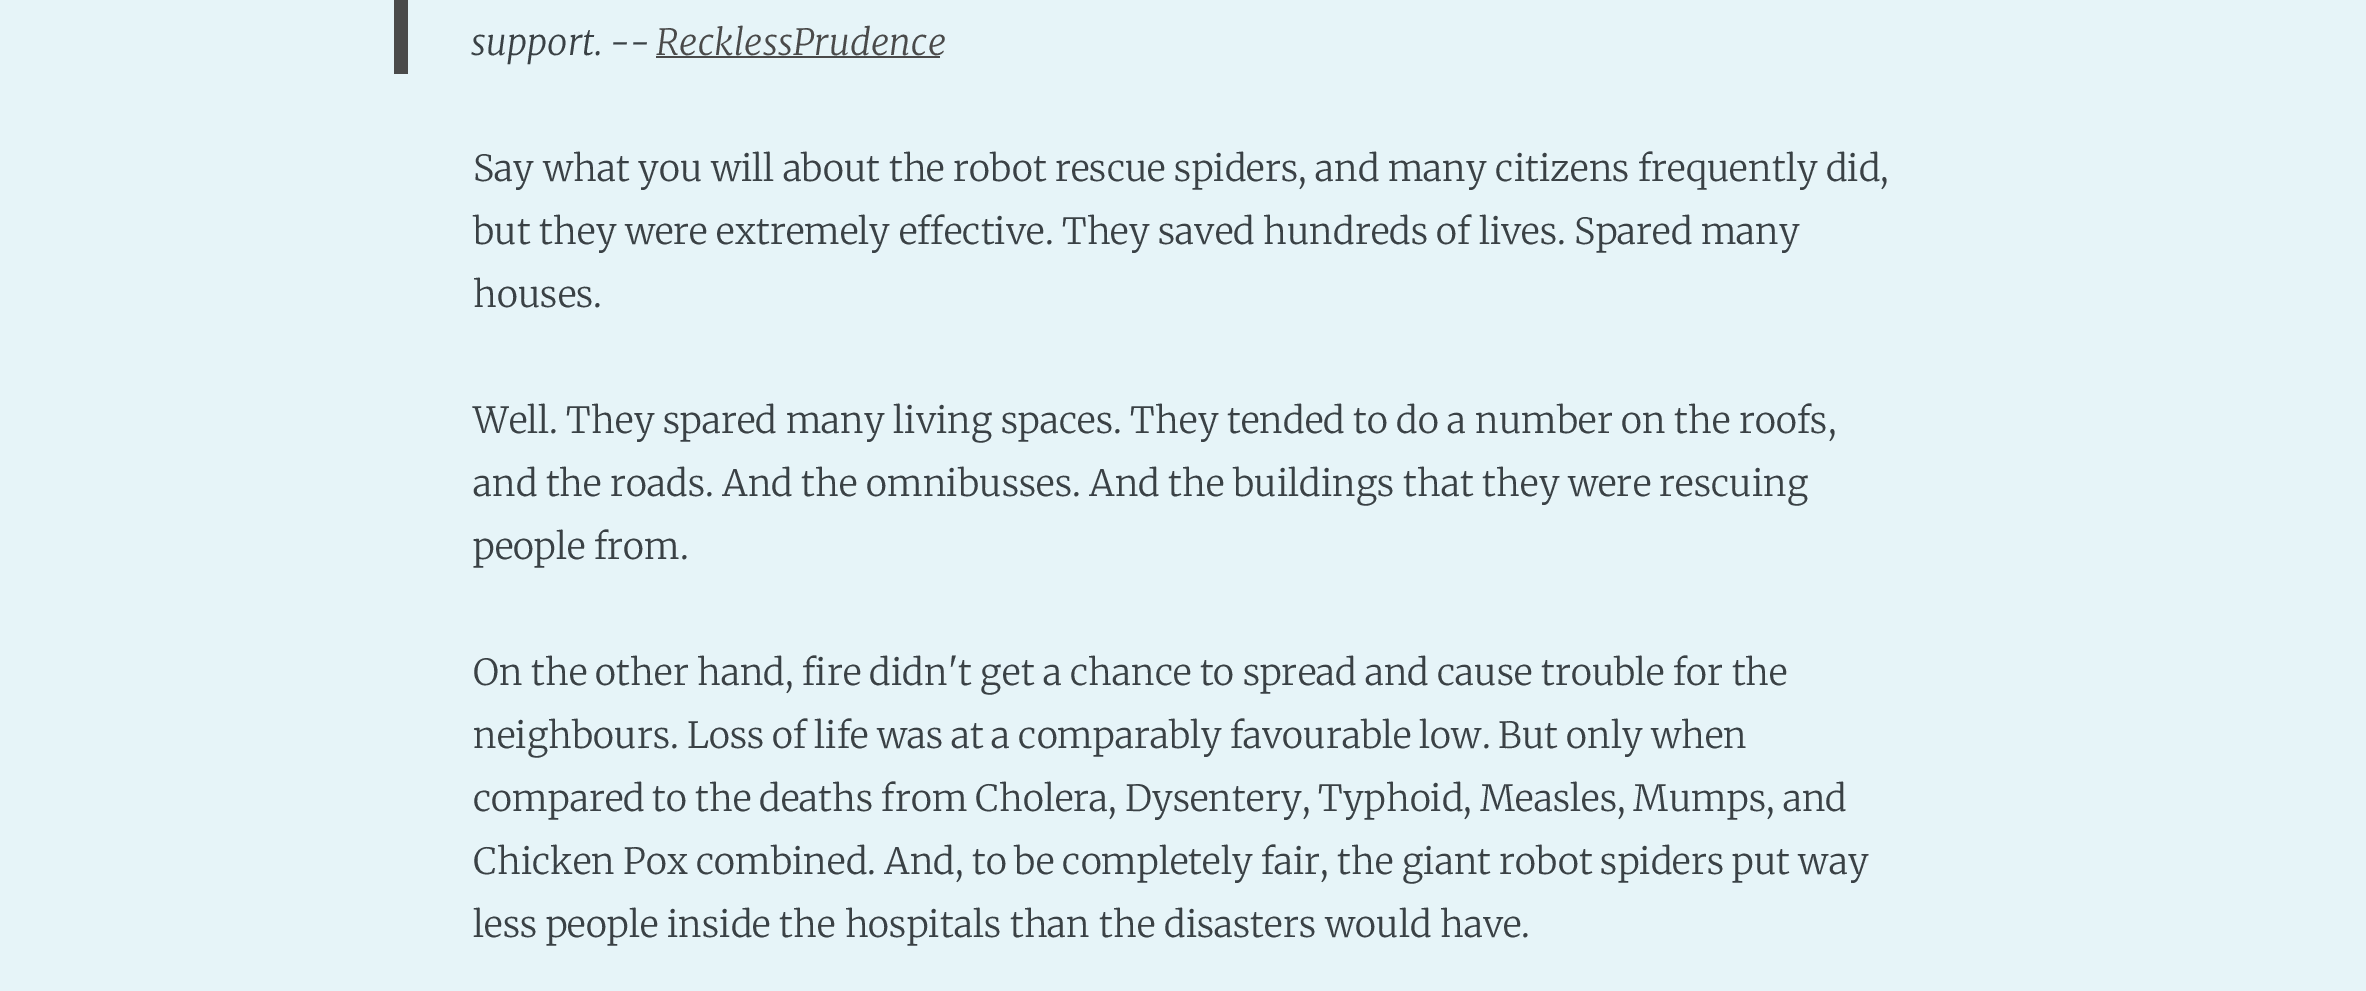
%!PS
<< /PageSize [2366 991] >> setpagedevice
/mt/moveto load def
/co { dup -16 bitshift 255 div exch dup -8 bitshift 255 and 255 div exch 255 and 255 div setrgbcolor } def
/fn { [ exch dup neg 0 0 3 -1 roll 0 0 ] selectfont } def
/bx { co rectfill } def
0 991 translate 1 -1 scale
4 setmiterlimit
0 0 2366 991 16#E6F4F8 bx
394 0 14 74 16#4A4A4A bx
656 56 284 2 16#4A4A4A bx
/Merriweather-LightItalic 36 fn
16#3A4145 co
471 55 mt -1 0 32 .2 0 (support. --) awidthshow
16#4A4A4A co
656 55 mt .2 0 (RecklessPrudence) ashow
/Merriweather-Light 36 fn
16#3A4145 co
473 181 mt -.4 0 32 .2 0 (Say what you will about the robot rescue spiders, and many citizens frequently did,) awidthshow
473 244 mt -.5 0 32 .2 0 (but they were extremely effective. They saved hundreds of lives. Spared many) awidthshow
473 307 mt .2 0 (houses.) ashow
473 433 mt -.25 0 32 .2 0 (Well. They spared many living spaces. They tended to do a number on the roofs,) awidthshow
473 496 mt -.4 0 32 .2 0 (and the roads. And the omnibusses. And the buildings that they were rescuing) awidthshow
473 559 mt .2 0 (people from.) ashow
473 685 mt -.6 0 32 .2 0 (On the other hand, fire didn't get a chance to spread and cause trouble for the) awidthshow
473 748 mt -.9 0 32 .2 0 (neighbours. Loss of life was at a comparably favourable low. But only when) awidthshow
473 811 mt -.9 0 32 .2 0 (compared to the deaths from Cholera, Dysentery, Typhoid, Measles, Mumps, and) awidthshow
473 874 mt -.75 0 32 .2 0 (Chicken Pox combined. And, to be completely fair, the giant robot spiders put way) awidthshow
473 937 mt .2 0 (less people inside the hospitals than the disasters would have.) ashow
showpage
